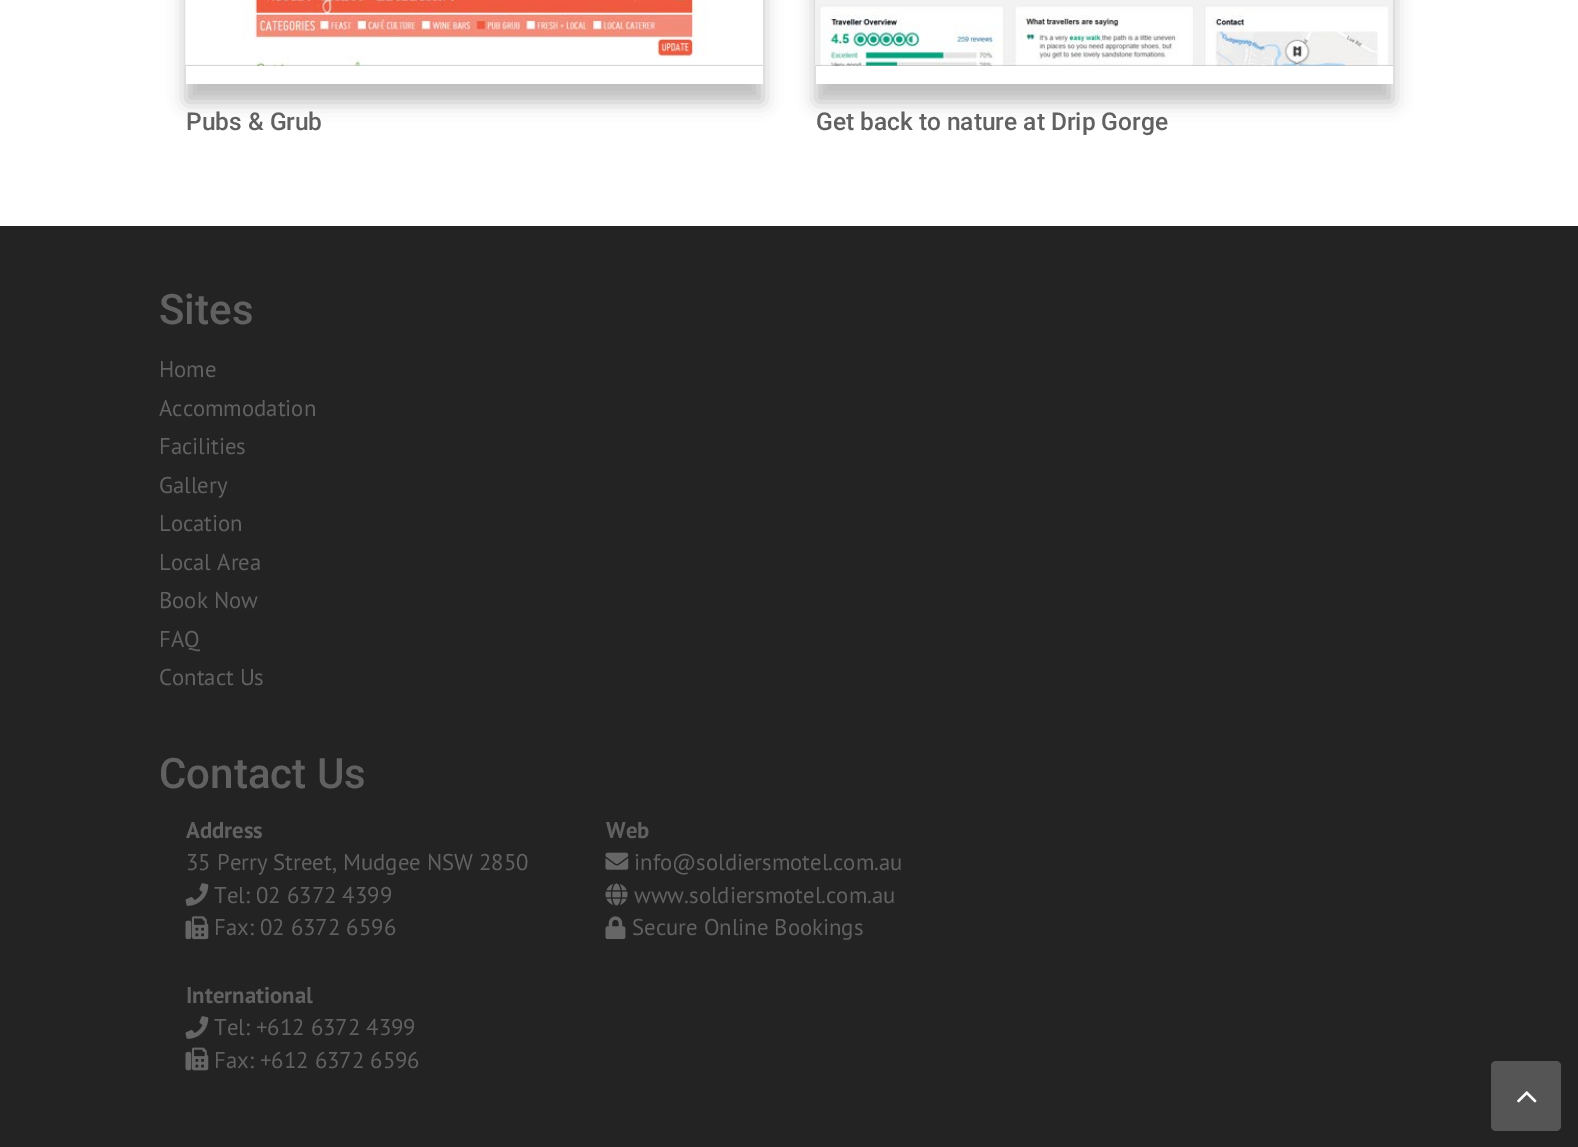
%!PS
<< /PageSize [1578 1147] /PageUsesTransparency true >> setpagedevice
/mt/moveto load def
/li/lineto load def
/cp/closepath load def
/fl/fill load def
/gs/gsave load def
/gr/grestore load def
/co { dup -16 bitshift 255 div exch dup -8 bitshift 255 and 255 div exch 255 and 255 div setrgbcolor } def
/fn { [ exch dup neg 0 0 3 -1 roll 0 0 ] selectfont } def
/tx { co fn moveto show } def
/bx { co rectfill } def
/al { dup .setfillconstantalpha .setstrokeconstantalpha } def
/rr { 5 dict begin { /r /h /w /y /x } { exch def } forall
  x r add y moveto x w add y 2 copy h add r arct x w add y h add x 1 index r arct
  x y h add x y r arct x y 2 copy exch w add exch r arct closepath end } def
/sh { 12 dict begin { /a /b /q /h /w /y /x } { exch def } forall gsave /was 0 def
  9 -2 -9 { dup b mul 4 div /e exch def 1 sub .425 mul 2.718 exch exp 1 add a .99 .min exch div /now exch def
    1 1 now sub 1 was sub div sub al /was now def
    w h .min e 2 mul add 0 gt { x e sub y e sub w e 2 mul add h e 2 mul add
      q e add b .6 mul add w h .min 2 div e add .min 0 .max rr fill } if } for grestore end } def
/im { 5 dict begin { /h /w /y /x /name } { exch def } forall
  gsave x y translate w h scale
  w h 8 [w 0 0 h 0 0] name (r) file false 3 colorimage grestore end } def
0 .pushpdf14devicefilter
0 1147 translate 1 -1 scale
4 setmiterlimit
0 0 1578 1147 16#FFFFFF bx
gs
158 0 mt 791 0 li 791 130 li 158 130 li cp 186 -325 mt 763 -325 li 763 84 li 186 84 li cp eoclip newpath
16#000000 co
186 -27 577 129 0 9 .25 sh
gr
(media/1.raw) 185 0 578 66 im
gs
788 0 mt 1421 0 li 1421 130 li 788 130 li cp 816 -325 mt 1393 -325 li 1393 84 li 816 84 li cp eoclip newpath
16#000000 co
816 -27 577 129 0 9 .25 sh
gr
(media/2.raw) 815 0 578 66 im
0 226 1578 921 16#232323 bx
(media/3.raw) 185 883 24 23 im
(media/4.raw) 185 916 24 24 im
(media/3.raw) 185 1016 24 23 im
(media/5.raw) 185 1047 24 24 im
(media/6.raw) 605 852 24 18 im
(media/7.raw) 605 883 23 23 im
(media/8.raw) 605 916 21 24 im
16#555555 co
1491 1061 70 70 5 rr fl
(media/9.raw) 1517 1091 20 12 im
(Pubs & Grub) 186 130 /Roboto-Medium 24.5 16#616161 tx
(Get back to nature at Drip Gorge) 816 130 /Roboto-Medium 24.5 16#616161 tx
(Sites) 159 324 /Roboto-Medium 42 16#616161 tx
(Home) 159 377 /PTSans-Regular 22.75 16#616161 tx
(Accommodation) 159 416 /PTSans-Regular 22.75 16#616161 tx
(Facilities) 159 454 /PTSans-Regular 22.75 16#616161 tx
(Gallery) 159 493 /PTSans-Regular 22.75 16#616161 tx
(Location) 159 531 /PTSans-Regular 22.75 16#616161 tx
(Local Area) 159 570 /PTSans-Regular 22.75 16#616161 tx
(Book Now) 159 608 /PTSans-Regular 22.75 16#616161 tx
(FAQ) 159 647 /PTSans-Regular 22.75 16#616161 tx
(Contact Us) 159 685 /PTSans-Regular 22.75 16#616161 tx
(Contact Us) 159 788 /Roboto-Medium 42 16#616161 tx
(Address) 186 838 /PTSans-Bold 22.75 16#616161 tx
(35 Perry Street, Mudgee NSW 2850) 186 870 /PTSans-Regular 22.75 16#616161 tx
(Tel: 02 6372 4399) 214 903 /PTSans-Regular 22.75 16#616161 tx
(Fax: 02 6372 6596) 214 935 /PTSans-Regular 22.75 16#616161 tx
(International) 186 1003 /PTSans-Bold 22.75 16#616161 tx
(Tel: +612 6372 4399) 214 1035 /PTSans-Regular 22.75 16#616161 tx
(Fax: +612 6372 6596) 214 1068 /PTSans-Regular 22.75 16#616161 tx
(Web) 606 838 /PTSans-Bold 22.75 16#616161 tx
(info@soldiersmotel.com.au) 634 870 /PTSans-Regular 22.75 16#616161 tx
(www.soldiersmotel.com.au) 634 903 /PTSans-Regular 22.75 16#616161 tx
(Secure Online Bookings) 632 935 /PTSans-Regular 22.75 16#616161 tx
.poppdf14devicefilter showpage
